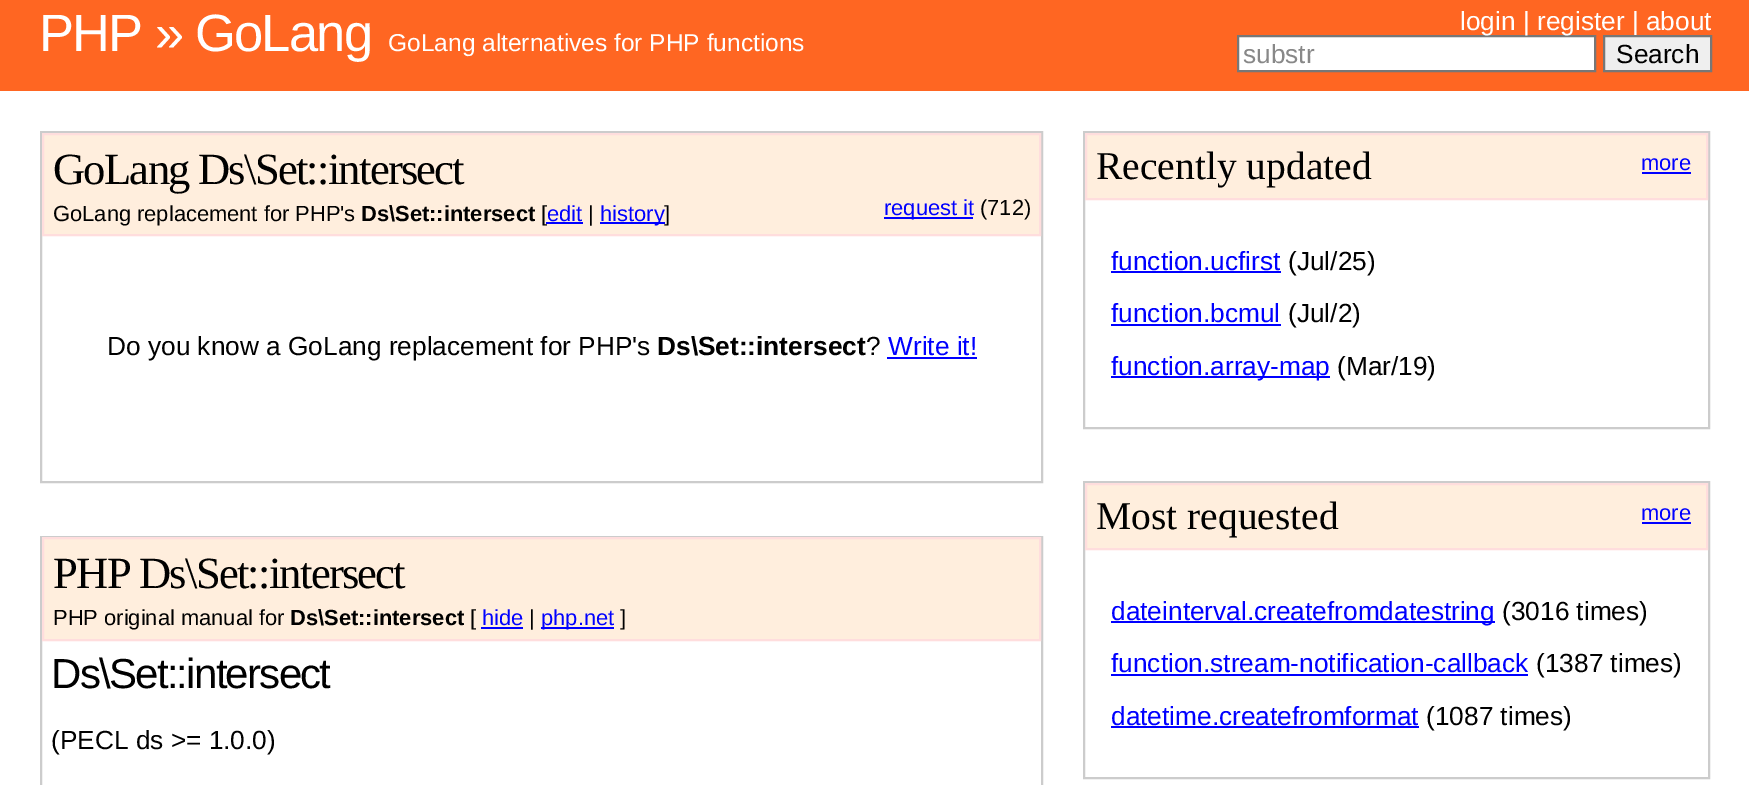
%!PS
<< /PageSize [1749 785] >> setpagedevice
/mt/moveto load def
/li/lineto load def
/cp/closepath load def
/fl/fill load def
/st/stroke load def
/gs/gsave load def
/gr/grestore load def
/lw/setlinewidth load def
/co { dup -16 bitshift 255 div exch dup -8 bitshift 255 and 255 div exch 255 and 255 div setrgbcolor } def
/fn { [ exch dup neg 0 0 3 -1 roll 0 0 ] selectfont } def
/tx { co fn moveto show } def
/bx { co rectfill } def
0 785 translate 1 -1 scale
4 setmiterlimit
0 0 1749 785 16#FFFFFF bx
0 0 1749 91 16#FF6622 bx
16#FFFFFF co
1238 36 mt 1595 36 li 1595 71 li 1238 71 li cp gs fl gr
16#777777 co
2 lw
st
16#CCCCCC co
41 132 1001 350 rectstroke
16#FFEEDD co
43 134 mt 1040 134 li 1040 235 li 43 235 li cp gs fl gr
16#FFDDDD co
st
600 222 65 2 16#0000FF bx
884 217 89 2 16#0000FF bx
887 357 90 2 16#0000FF bx
16#CCCCCC co
41 537 1001 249 rectstroke
16#FFEEDD co
43 538 mt 1040 538 li 1040 640 li 43 640 li cp gs fl gr
16#FFDDDD co
st
481 627 42 2 16#0000FF bx
541 627 73 2 16#0000FF bx
16#CCCCCC co
1084 132 625 296 rectstroke
16#FFEEDD co
1086 134 mt 1707 134 li 1707 199 li 1086 199 li cp gs fl gr
16#FFDDDD co
st
1642 172 49 2 16#0000FF bx
1111 271 170 2 16#0000FF bx
1111 324 170 2 16#0000FF bx
1111 376 219 2 16#0000FF bx
16#CCCCCC co
1084 482 625 296 rectstroke
16#FFEEDD co
1086 484 mt 1707 484 li 1707 549 li 1086 549 li cp gs fl gr
16#FFDDDD co
st
1642 522 49 2 16#0000FF bx
1111 621 384 2 16#0000FF bx
1111 674 417 2 16#0000FF bx
1111 726 308 2 16#0000FF bx
/LiberationSans-Regular 52.5 fn
16#FFFFFF co
39 51 mt -1.75 0 (PHP » GoLang) ashow
(GoLang alternatives for PHP functions) 388 51 /LiberationSans-Regular 24.5 16#FFFFFF tx
(login | register | about) 1460 30 /LiberationSans-Regular 26.25 16#FFFFFF tx
(substr) 1243 63 /LiberationSans-Regular 26.25 16#888888 tx
16#EFEFEF co
1604 36 mt 1711 36 li 1711 71 li 1604 71 li cp gs fl gr
16#777777 co
st
(Search) 1616 63 /LiberationSans-Regular 26.25 16#000000 tx
/LiberationSerif-Regular 44.6 fn
53 184 mt -1.75 0 (GoLang Ds\\Set::intersect) ashow
(GoLang replacement for PHP's) 53 221 /LiberationSans-Regular 21.9 16#000000 tx
(Ds\\Set::intersect) 361 221 /LiberationSans-Bold 21.9 16#000000 tx
([) 541 221 /LiberationSans-Regular 21.9 16#000000 tx
(edit) 547 221 /LiberationSans-Regular 21.9 16#0000FF tx
546 222 37 2 16#0000FF bx
(|) 588 221 /LiberationSans-Regular 21.9 16#000000 tx
(history) 600 221 /LiberationSans-Regular 21.9 16#0000FF tx
(]) 664 221 /LiberationSans-Regular 21.9 16#000000 tx
(request it) 884 215 /LiberationSans-Regular 21.9 16#0000FF tx
(\(712\)) 980 215 /LiberationSans-Regular 21.9 16#000000 tx
(Do you know a GoLang replacement for PHP's) 107 355 /LiberationSans-Regular 26.25 16#000000 tx
(Ds\\Set::intersect) 657 355 /LiberationSans-Bold 26.25 16#000000 tx
(?) 866 355 /LiberationSans-Regular 26.25 16#000000 tx
(Write it!) 888 355 /LiberationSans-Regular 26.25 16#0000FF tx
/LiberationSerif-Regular 44.6 fn
16#000000 co
53 588 mt -1.75 0 (PHP Ds\\Set::intersect) ashow
(PHP original manual for) 53 625 /LiberationSans-Regular 21.9 16#000000 tx
(Ds\\Set::intersect) 290 625 /LiberationSans-Bold 21.9 16#000000 tx
([) 470 625 /LiberationSans-Regular 21.9 16#000000 tx
(hide) 482 625 /LiberationSans-Regular 21.9 16#0000FF tx
(|) 529 625 /LiberationSans-Regular 21.9 16#000000 tx
(php.net) 541 625 /LiberationSans-Regular 21.9 16#0000FF tx
(]) 620 625 /LiberationSans-Regular 21.9 16#000000 tx
/LiberationSans-Regular 42 fn
51 688 mt -1.75 0 (Ds\\Set::intersect) ashow
(\(PECL ds >= 1.0.0\)) 51 749 /LiberationSans-Regular 26.25 16#000000 tx
(Recently updated) 1096 179 /LiberationSerif-Regular 39.5 16#000000 tx
(more) 1641 170 /LiberationSans-Regular 21.9 16#0000FF tx
(function.ucfirst) 1111 270 /LiberationSans-Regular 26.25 16#0000FF tx
(\(Jul/25\)) 1288 270 /LiberationSans-Regular 26.25 16#000000 tx
(function.bcmul) 1111 322 /LiberationSans-Regular 26.25 16#0000FF tx
(\(Jul/2\)) 1288 322 /LiberationSans-Regular 26.25 16#000000 tx
(function.array-map) 1111 375 /LiberationSans-Regular 26.25 16#0000FF tx
(\(Mar/19\)) 1337 375 /LiberationSans-Regular 26.25 16#000000 tx
(Most requested) 1096 529 /LiberationSerif-Regular 39.5 16#000000 tx
(more) 1641 520 /LiberationSans-Regular 21.9 16#0000FF tx
(dateinterval.createfromdatestring) 1111 620 /LiberationSans-Regular 26.25 16#0000FF tx
(\(3016 times\)) 1502 620 /LiberationSans-Regular 26.25 16#000000 tx
(function.stream-notification-callback) 1111 672 /LiberationSans-Regular 26.25 16#0000FF tx
(\(1387 times\)) 1536 672 /LiberationSans-Regular 26.25 16#000000 tx
(datetime.createfromformat) 1111 725 /LiberationSans-Regular 26.25 16#0000FF tx
(\(1087 times\)) 1426 725 /LiberationSans-Regular 26.25 16#000000 tx
showpage
